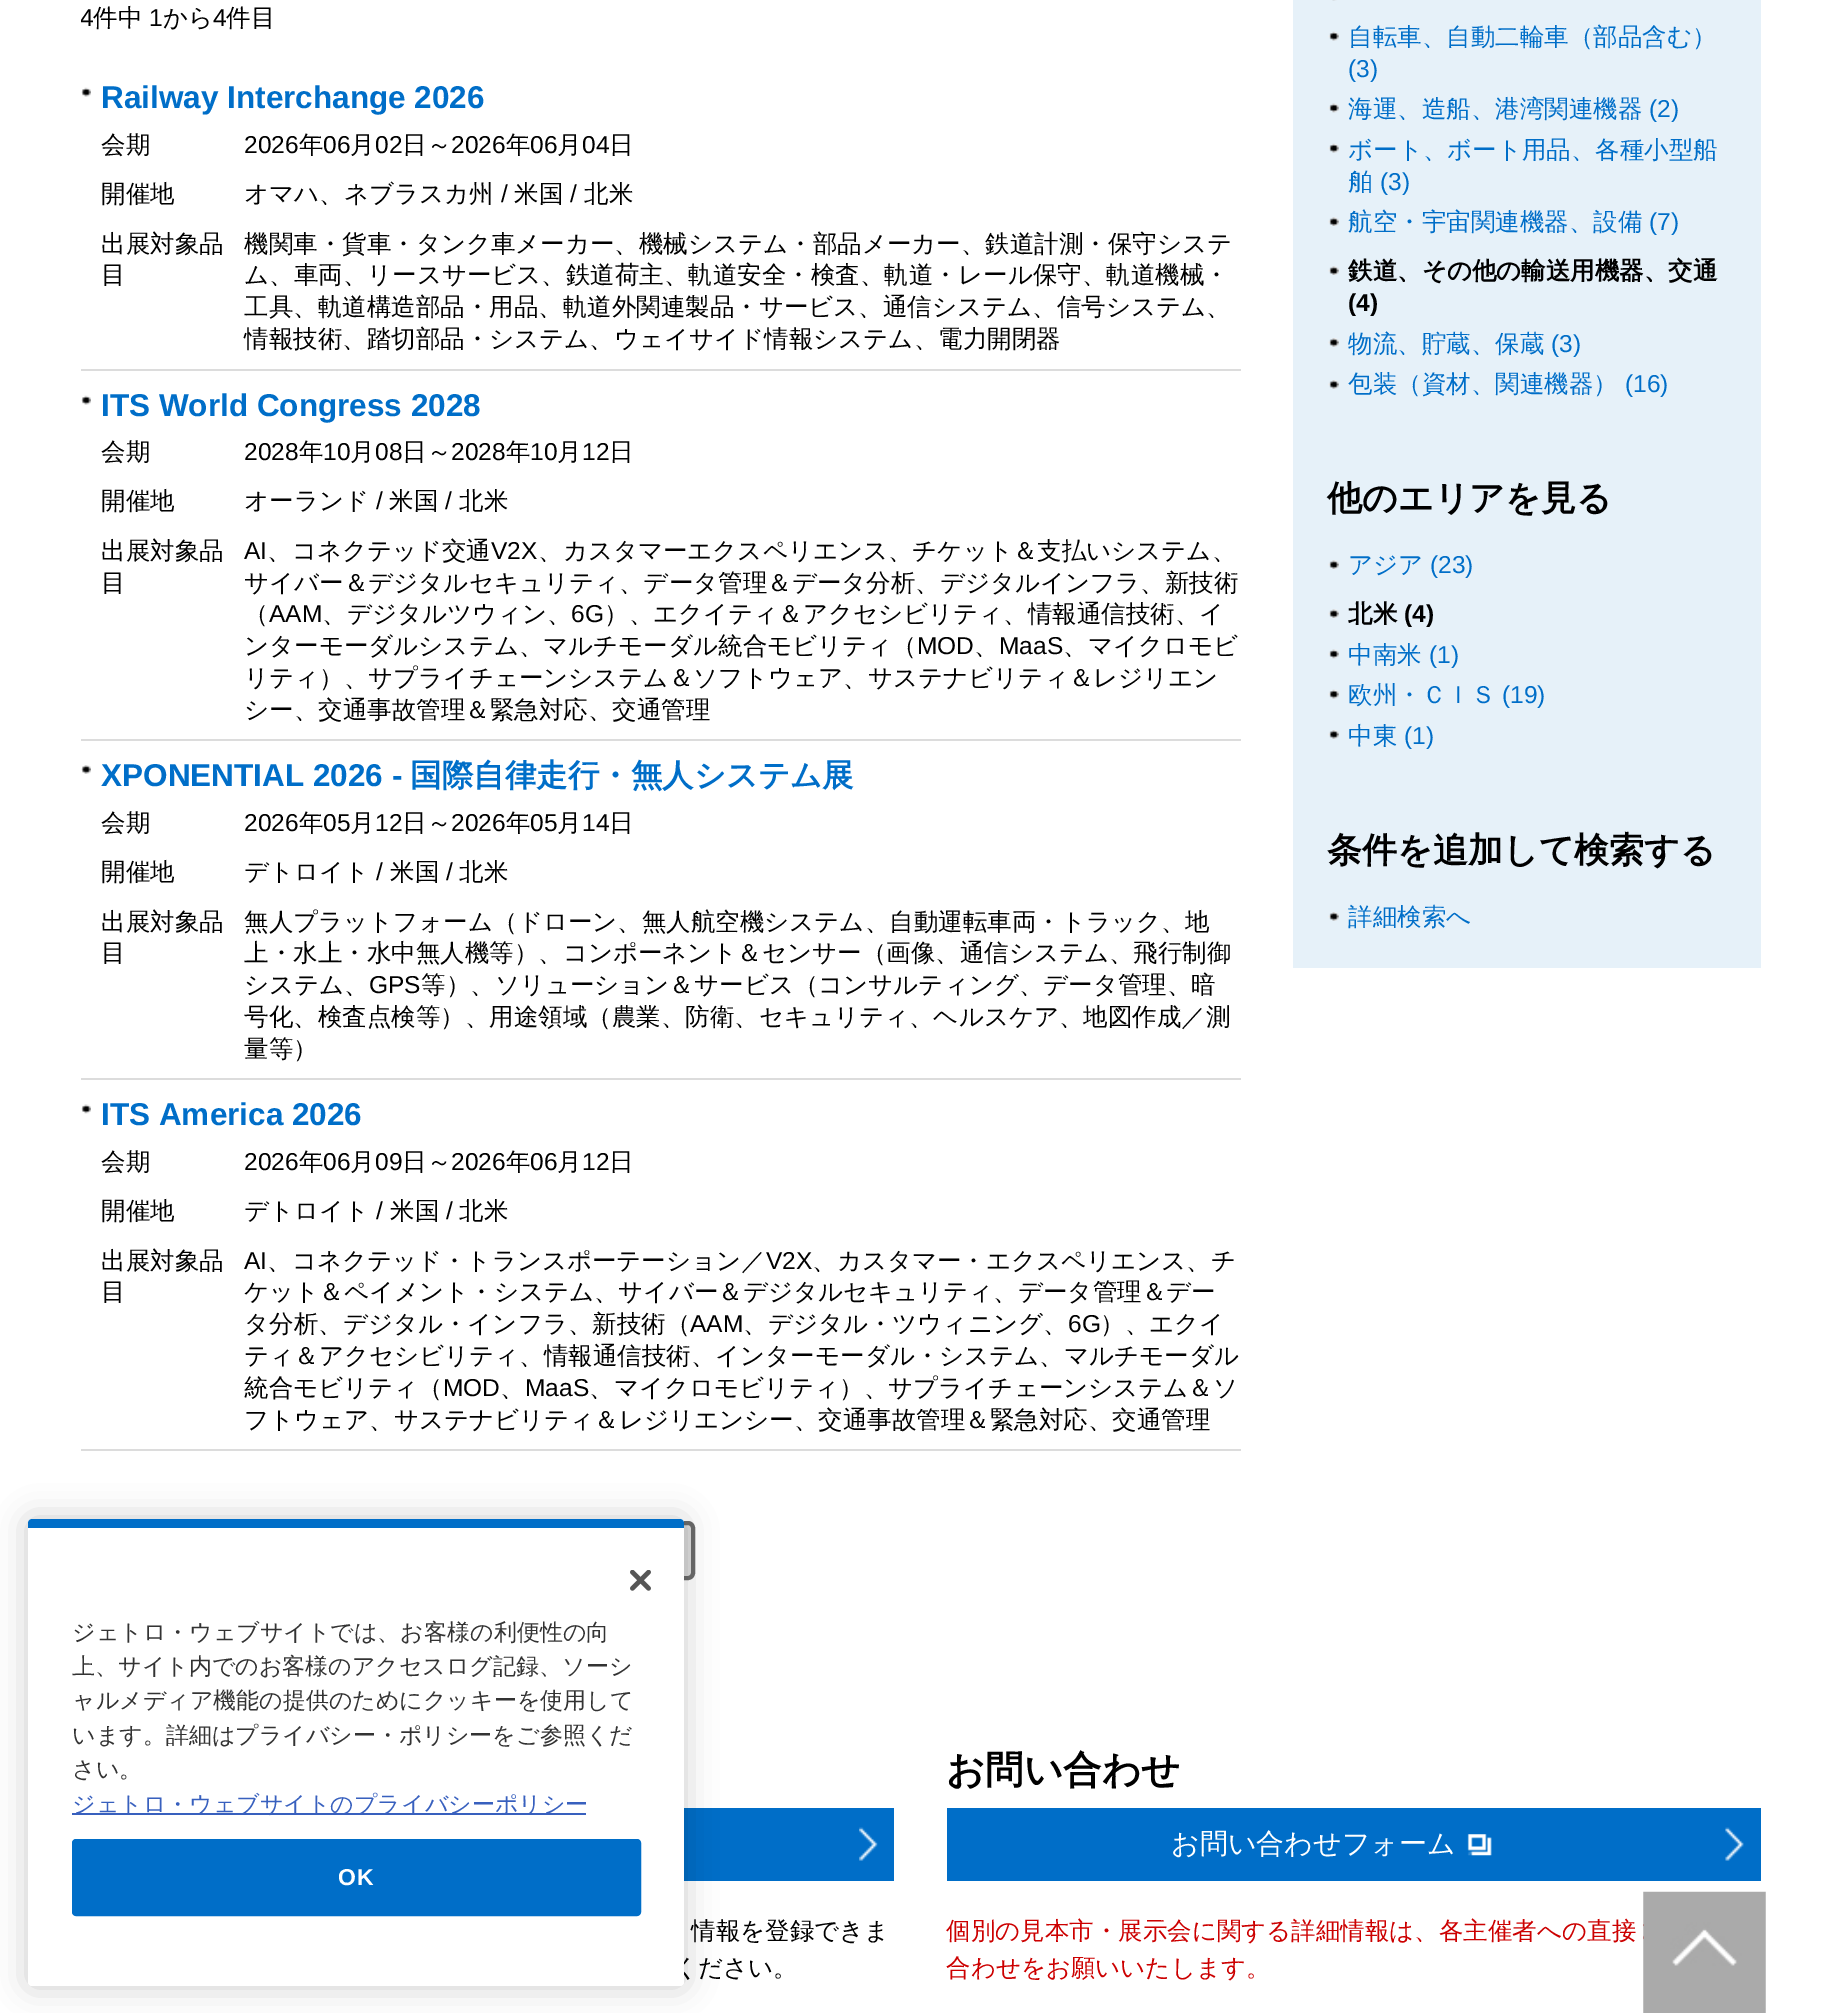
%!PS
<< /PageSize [1839 2013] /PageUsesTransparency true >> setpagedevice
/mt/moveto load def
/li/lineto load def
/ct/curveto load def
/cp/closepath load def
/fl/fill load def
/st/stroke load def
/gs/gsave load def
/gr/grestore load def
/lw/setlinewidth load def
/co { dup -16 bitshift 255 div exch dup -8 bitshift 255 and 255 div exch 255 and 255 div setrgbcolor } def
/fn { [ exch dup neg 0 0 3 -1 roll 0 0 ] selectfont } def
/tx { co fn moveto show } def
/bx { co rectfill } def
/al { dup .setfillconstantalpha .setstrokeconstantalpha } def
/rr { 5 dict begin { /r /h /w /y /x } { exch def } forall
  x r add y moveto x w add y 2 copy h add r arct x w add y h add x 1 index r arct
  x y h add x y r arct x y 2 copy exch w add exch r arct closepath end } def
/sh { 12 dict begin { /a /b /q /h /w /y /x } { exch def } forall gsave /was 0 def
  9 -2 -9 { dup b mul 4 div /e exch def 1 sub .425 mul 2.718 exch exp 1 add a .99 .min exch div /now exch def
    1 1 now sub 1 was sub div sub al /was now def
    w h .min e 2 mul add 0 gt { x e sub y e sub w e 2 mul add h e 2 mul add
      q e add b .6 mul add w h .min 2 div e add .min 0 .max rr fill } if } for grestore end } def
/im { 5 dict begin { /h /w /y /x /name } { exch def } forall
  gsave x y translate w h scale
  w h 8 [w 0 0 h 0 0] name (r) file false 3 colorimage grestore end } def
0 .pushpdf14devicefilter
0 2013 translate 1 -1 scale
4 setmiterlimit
0 0 1839 2013 16#FFFFFF bx
(media/1.raw) 81 87 10 10 im
81 369 1160 2 16#DCDCDC bx
(media/1.raw) 81 395 10 10 im
81 739 1160 2 16#DCDCDC bx
(media/2.raw) 81 765 10 9 im
81 1078 1160 2 16#DCDCDC bx
(media/3.raw) 81 1104 10 10 im
81 1449 1160 2 16#DCDCDC bx
627 1523 66 55 5 rr gs fl gr
16#6C6C6C co
4 lw
st
1293 0 468 968 16#E6F1F9 bx
(media/4.raw) 1332 0 5 1 im
(media/5.raw) 1328 31 11 10 im
(media/6.raw) 1328 103 11 10 im
(media/5.raw) 1328 143 11 10 im
(media/7.raw) 1328 217 11 9 im
(media/7.raw) 1328 266 11 9 im
(media/8.raw) 1328 338 11 9 im
(media/8.raw) 1328 380 11 9 im
(media/7.raw) 1328 560 11 9 im
(media/7.raw) 1328 609 11 9 im
(media/6.raw) 1328 649 11 10 im
(media/5.raw) 1328 689 11 10 im
(media/8.raw) 1328 730 11 9 im
(media/8.raw) 1328 912 11 9 im
684 1808 210 73 16#006EC8 bx
(media/9.raw) 859 1827 19 34 im
947 1808 814 73 16#006EC8 bx
(media/10.raw) 1725 1827 19 34 im
(media/11.raw) 1467 1834 25 22 im
(media/12.raw) 1643 1891 123 122 im
16#000000 co
28 1519 656 467 4 16 .2 sh
gs
81 0 1160 1649 rectclip
(4) 80 26 /LiberationSans-Regular 24.5 16#000000 tx
gr
(件中) 93 26 /WenQuanYiZenHei-Medium 24.5 16#000000 tx
(1) 149 26 /LiberationSans-Regular 24.5 16#000000 tx
(から) 163 26 /WenQuanYiZenHei-Medium 24.5 16#000000 tx
(4) 213 26 /LiberationSans-Regular 24.5 16#000000 tx
(件目) 226 26 /WenQuanYiZenHei-Medium 24.5 16#000000 tx
(Railway Interchange 2026) 101 108 /LiberationSans-Bold 31.5 16#006EC8 tx
(会期) 101 153 /WenQuanYiZenHei-Medium 24.5 16#000000 tx
(2026) 244 153 /LiberationSans-Regular 24.5 16#000000 tx
(年) 299 153 /WenQuanYiZenHei-Medium 24.5 16#000000 tx
(06) 323 153 /LiberationSans-Regular 24.5 16#000000 tx
(月) 350 153 /WenQuanYiZenHei-Medium 24.5 16#000000 tx
(02) 375 153 /LiberationSans-Regular 24.5 16#000000 tx
(日～) 402 153 /WenQuanYiZenHei-Medium 24.5 16#000000 tx
(2026) 451 153 /LiberationSans-Regular 24.5 16#000000 tx
(年) 506 153 /WenQuanYiZenHei-Medium 24.5 16#000000 tx
(06) 530 153 /LiberationSans-Regular 24.5 16#000000 tx
(月) 557 153 /WenQuanYiZenHei-Medium 24.5 16#000000 tx
(04) 582 153 /LiberationSans-Regular 24.5 16#000000 tx
(日) 609 153 /WenQuanYiZenHei-Medium 24.5 16#000000 tx
(開催地) 101 202 /WenQuanYiZenHei-Medium 24.5 16#000000 tx
(オマハ、ネブラスカ州) 244 202 /WenQuanYiZenHei-Medium 24.5 16#000000 tx
(/) 501 202 /LiberationSans-Regular 24.5 16#000000 tx
(米国) 514 202 /WenQuanYiZenHei-Medium 24.5 16#000000 tx
(/) 570 202 /LiberationSans-Regular 24.5 16#000000 tx
(北米) 584 202 /WenQuanYiZenHei-Medium 24.5 16#000000 tx
(出展対象品) 101 252 /WenQuanYiZenHei-Medium 24.5 16#000000 tx
(目) 101 283 /WenQuanYiZenHei-Medium 24.5 16#000000 tx
(機関車・貨車・タンク車メーカー、機械システム・部品メーカー、鉄道計測・保守システ) 244 252 /WenQuanYiZenHei-Medium 24.5 16#000000 tx
(ム、車両、リースサービス、鉄道荷主、軌道安全・検査、軌道・レール保守、軌道機械・) 244 283 /WenQuanYiZenHei-Medium 24.5 16#000000 tx
(工具、軌道構造部品・用品、軌道外関連製品・サービス、通信システム、信号システム、) 244 315 /WenQuanYiZenHei-Medium 24.5 16#000000 tx
(情報技術、踏切部品・システム、ウェイサイド情報システム、電力開閉器) 244 347 /WenQuanYiZenHei-Medium 24.5 16#000000 tx
(ITS World Congress 2028) 101 416 /LiberationSans-Bold 31.5 16#006EC8 tx
(会期) 101 460 /WenQuanYiZenHei-Medium 24.5 16#000000 tx
(2028) 244 460 /LiberationSans-Regular 24.5 16#000000 tx
(年) 299 460 /WenQuanYiZenHei-Medium 24.5 16#000000 tx
(10) 323 460 /LiberationSans-Regular 24.5 16#000000 tx
(月) 350 460 /WenQuanYiZenHei-Medium 24.5 16#000000 tx
(08) 375 460 /LiberationSans-Regular 24.5 16#000000 tx
(日～) 402 460 /WenQuanYiZenHei-Medium 24.5 16#000000 tx
(2028) 451 460 /LiberationSans-Regular 24.5 16#000000 tx
(年) 506 460 /WenQuanYiZenHei-Medium 24.5 16#000000 tx
(10) 530 460 /LiberationSans-Regular 24.5 16#000000 tx
(月) 557 460 /WenQuanYiZenHei-Medium 24.5 16#000000 tx
(12) 582 460 /LiberationSans-Regular 24.5 16#000000 tx
(日) 609 460 /WenQuanYiZenHei-Medium 24.5 16#000000 tx
(開催地) 101 509 /WenQuanYiZenHei-Medium 24.5 16#000000 tx
(オーランド) 244 509 /WenQuanYiZenHei-Medium 24.5 16#000000 tx
(/) 376 509 /LiberationSans-Regular 24.5 16#000000 tx
(米国) 389 509 /WenQuanYiZenHei-Medium 24.5 16#000000 tx
(/) 445 509 /LiberationSans-Regular 24.5 16#000000 tx
(北米) 459 509 /WenQuanYiZenHei-Medium 24.5 16#000000 tx
(出展対象品) 101 559 /WenQuanYiZenHei-Medium 24.5 16#000000 tx
(目) 101 591 /WenQuanYiZenHei-Medium 24.5 16#000000 tx
(AI) 244 559 /LiberationSans-Regular 24.5 16#000000 tx
(、コネクテッド交通) 267 559 /WenQuanYiZenHei-Medium 24.5 16#000000 tx
(V2X) 491 559 /LiberationSans-Regular 24.5 16#000000 tx
(、カスタマーエクスペリエンス、チケット＆支払いシステム、) 538 559 /WenQuanYiZenHei-Medium 24.5 16#000000 tx
(サイバー＆デジタルセキュリティ、データ管理＆データ分析、デジタルインフラ、新技術) 244 591 /WenQuanYiZenHei-Medium 24.5 16#000000 tx
(（) 244 622 /WenQuanYiZenHei-Medium 24.5 16#000000 tx
(AAM) 269 622 /LiberationSans-Regular 24.5 16#000000 tx
(、デジタルツウィン、) 322 622 /WenQuanYiZenHei-Medium 24.5 16#000000 tx
(6G) 571 622 /LiberationSans-Regular 24.5 16#000000 tx
(）、エクイティ＆アクセシビリティ、情報通信技術、イ) 604 622 /WenQuanYiZenHei-Medium 24.5 16#000000 tx
(ンターモーダルシステム、マルチモーダル統合モビリティ（) 244 654 /WenQuanYiZenHei-Medium 24.5 16#000000 tx
(MOD) 917 654 /LiberationSans-Regular 24.5 16#000000 tx
(、) 974 654 /WenQuanYiZenHei-Medium 24.5 16#000000 tx
(MaaS) 999 654 /LiberationSans-Regular 24.5 16#000000 tx
(、マイクロモビ) 1063 654 /WenQuanYiZenHei-Medium 24.5 16#000000 tx
(リティ）、サプライチェーンシステム＆ソフトウェア、サステナビリティ＆レジリエン) 244 686 /WenQuanYiZenHei-Medium 24.5 16#000000 tx
(シー、交通事故管理＆緊急対応、交通管理) 244 718 /WenQuanYiZenHei-Medium 24.5 16#000000 tx
(XPONENTIAL 2026 -) 101 786 /LiberationSans-Bold 31.5 16#006EC8 tx
(国際自律走行・無人システム展) 410 786 /WenQuanYiZenHei-Bold 31.5 16#006EC8 tx
(会期) 101 831 /WenQuanYiZenHei-Medium 24.5 16#000000 tx
(2026) 244 831 /LiberationSans-Regular 24.5 16#000000 tx
(年) 299 831 /WenQuanYiZenHei-Medium 24.5 16#000000 tx
(05) 323 831 /LiberationSans-Regular 24.5 16#000000 tx
(月) 350 831 /WenQuanYiZenHei-Medium 24.5 16#000000 tx
(12) 375 831 /LiberationSans-Regular 24.5 16#000000 tx
(日～) 402 831 /WenQuanYiZenHei-Medium 24.5 16#000000 tx
(2026) 451 831 /LiberationSans-Regular 24.5 16#000000 tx
(年) 506 831 /WenQuanYiZenHei-Medium 24.5 16#000000 tx
(05) 530 831 /LiberationSans-Regular 24.5 16#000000 tx
(月) 557 831 /WenQuanYiZenHei-Medium 24.5 16#000000 tx
(14) 582 831 /LiberationSans-Regular 24.5 16#000000 tx
(日) 609 831 /WenQuanYiZenHei-Medium 24.5 16#000000 tx
(開催地) 101 880 /WenQuanYiZenHei-Medium 24.5 16#000000 tx
(デトロイト) 244 880 /WenQuanYiZenHei-Medium 24.5 16#000000 tx
(/) 376 880 /LiberationSans-Regular 24.5 16#000000 tx
(米国) 390 880 /WenQuanYiZenHei-Medium 24.5 16#000000 tx
(/) 446 880 /LiberationSans-Regular 24.5 16#000000 tx
(北米) 459 880 /WenQuanYiZenHei-Medium 24.5 16#000000 tx
(出展対象品) 101 930 /WenQuanYiZenHei-Medium 24.5 16#000000 tx
(目) 101 961 /WenQuanYiZenHei-Medium 24.5 16#000000 tx
(無人プラットフォーム（ドローン、無人航空機システム、自動運転車両・トラック、地) 244 930 /WenQuanYiZenHei-Medium 24.5 16#000000 tx
(上・水上・水中無人機等）、コンポーネント＆センサー（画像、通信システム、飛行制御) 244 961 /WenQuanYiZenHei-Medium 24.5 16#000000 tx
(システム、) 244 993 /WenQuanYiZenHei-Medium 24.5 16#000000 tx
(GPS) 369 993 /LiberationSans-Regular 24.5 16#000000 tx
(等）、ソリューション＆サービス（コンサルティング、データ管理、暗) 421 993 /WenQuanYiZenHei-Medium 24.5 16#000000 tx
(号化、検査点検等）、用途領域（農業、防衛、セキュリティ、ヘルスケア、地図作成／測) 244 1025 /WenQuanYiZenHei-Medium 24.5 16#000000 tx
(量等）) 244 1057 /WenQuanYiZenHei-Medium 24.5 16#000000 tx
(ITS America 2026) 101 1125 /LiberationSans-Bold 31.5 16#006EC8 tx
(会期) 101 1170 /WenQuanYiZenHei-Medium 24.5 16#000000 tx
(2026) 244 1170 /LiberationSans-Regular 24.5 16#000000 tx
(年) 299 1170 /WenQuanYiZenHei-Medium 24.5 16#000000 tx
(06) 323 1170 /LiberationSans-Regular 24.5 16#000000 tx
(月) 350 1170 /WenQuanYiZenHei-Medium 24.5 16#000000 tx
(09) 375 1170 /LiberationSans-Regular 24.5 16#000000 tx
(日～) 402 1170 /WenQuanYiZenHei-Medium 24.5 16#000000 tx
(2026) 451 1170 /LiberationSans-Regular 24.5 16#000000 tx
(年) 506 1170 /WenQuanYiZenHei-Medium 24.5 16#000000 tx
(06) 530 1170 /LiberationSans-Regular 24.5 16#000000 tx
(月) 557 1170 /WenQuanYiZenHei-Medium 24.5 16#000000 tx
(12) 582 1170 /LiberationSans-Regular 24.5 16#000000 tx
(日) 609 1170 /WenQuanYiZenHei-Medium 24.5 16#000000 tx
(開催地) 101 1219 /WenQuanYiZenHei-Medium 24.5 16#000000 tx
(デトロイト) 244 1219 /WenQuanYiZenHei-Medium 24.5 16#000000 tx
(/) 376 1219 /LiberationSans-Regular 24.5 16#000000 tx
(米国) 390 1219 /WenQuanYiZenHei-Medium 24.5 16#000000 tx
(/) 446 1219 /LiberationSans-Regular 24.5 16#000000 tx
(北米) 459 1219 /WenQuanYiZenHei-Medium 24.5 16#000000 tx
(出展対象品) 101 1269 /WenQuanYiZenHei-Medium 24.5 16#000000 tx
(目) 101 1300 /WenQuanYiZenHei-Medium 24.5 16#000000 tx
(AI) 244 1269 /LiberationSans-Regular 24.5 16#000000 tx
(、コネクテッド・トランスポーテーション／) 267 1269 /WenQuanYiZenHei-Medium 24.5 16#000000 tx
(V2X) 766 1269 /LiberationSans-Regular 24.5 16#000000 tx
(、カスタマー・エクスペリエンス、チ) 812 1269 /WenQuanYiZenHei-Medium 24.5 16#000000 tx
(ケット＆ペイメント・システム、サイバー＆デジタルセキュリティ、データ管理＆デー) 244 1300 /WenQuanYiZenHei-Medium 24.5 16#000000 tx
(タ分析、デジタル・インフラ、新技術（) 244 1332 /WenQuanYiZenHei-Medium 24.5 16#000000 tx
(AAM) 690 1332 /LiberationSans-Regular 24.5 16#000000 tx
(、デジタル・ツウィニング、) 743 1332 /WenQuanYiZenHei-Medium 24.5 16#000000 tx
(6G) 1068 1332 /LiberationSans-Regular 24.5 16#000000 tx
(）、エクイ) 1100 1332 /WenQuanYiZenHei-Medium 24.5 16#000000 tx
(ティ＆アクセシビリティ、情報通信技術、インターモーダル・システム、マルチモーダル) 244 1364 /WenQuanYiZenHei-Medium 24.5 16#000000 tx
(統合モビリティ（) 244 1396 /WenQuanYiZenHei-Medium 24.5 16#000000 tx
(MOD) 443 1396 /LiberationSans-Regular 24.5 16#000000 tx
(、) 500 1396 /WenQuanYiZenHei-Medium 24.5 16#000000 tx
(MaaS) 525 1396 /LiberationSans-Regular 24.5 16#000000 tx
(、マイクロモビリティ）、サプライチェーンシステム＆ソ) 589 1396 /WenQuanYiZenHei-Medium 24.5 16#000000 tx
(フトウェア、サステナビリティ＆レジリエンシー、交通事故管理＆緊急対応、交通管理) 244 1428 /WenQuanYiZenHei-Medium 24.5 16#000000 tx
(自転車、自動二輪車（部品含む）) 1348 45 /WenQuanYiZenHei-Medium 24.5 16#006EC8 tx
(\(3\)) 1348 77 /LiberationSans-Regular 24.5 16#006EC8 tx
(海運、造船、港湾関連機器) 1348 117 /WenQuanYiZenHei-Medium 24.5 16#006EC8 tx
(\(2\)) 1649 117 /LiberationSans-Regular 24.5 16#006EC8 tx
(ボート、ボート用品、各種小型船) 1348 158 /WenQuanYiZenHei-Medium 24.5 16#006EC8 tx
(舶) 1348 190 /WenQuanYiZenHei-Medium 24.5 16#006EC8 tx
(\(3\)) 1380 190 /LiberationSans-Regular 24.5 16#006EC8 tx
(航空・宇宙関連機器、設備) 1348 230 /WenQuanYiZenHei-Medium 24.5 16#006EC8 tx
(\(7\)) 1649 230 /LiberationSans-Regular 24.5 16#006EC8 tx
(鉄道、その他の輸送用機器、交通) 1348 279 /WenQuanYiZenHei-Bold 24.5 16#000000 tx
(\(4\)) 1348 311 /LiberationSans-Bold 24.5 16#000000 tx
(物流、貯蔵、保蔵) 1348 352 /WenQuanYiZenHei-Medium 24.5 16#006EC8 tx
(\(3\)) 1551 352 /LiberationSans-Regular 24.5 16#006EC8 tx
(包装（資材、関連機器）) 1348 392 /WenQuanYiZenHei-Medium 24.5 16#006EC8 tx
(\(16\)) 1625 392 /LiberationSans-Regular 24.5 16#006EC8 tx
(他のエリアを見る) 1327 510 /WenQuanYiZenHei-Bold 35 16#000000 tx
(アジア) 1348 573 /WenQuanYiZenHei-Medium 24.5 16#006EC8 tx
(\(23\)) 1430 573 /LiberationSans-Regular 24.5 16#006EC8 tx
(北米) 1348 622 /WenQuanYiZenHei-Bold 24.5 16#000000 tx
(\(4\)) 1404 622 /LiberationSans-Bold 24.5 16#000000 tx
(中南米) 1348 663 /WenQuanYiZenHei-Medium 24.5 16#006EC8 tx
(\(1\)) 1429 663 /LiberationSans-Regular 24.5 16#006EC8 tx
(欧州・ＣＩＳ) 1348 703 /WenQuanYiZenHei-Medium 24.5 16#006EC8 tx
(\(19\)) 1502 703 /LiberationSans-Regular 24.5 16#006EC8 tx
(中東) 1348 744 /WenQuanYiZenHei-Medium 24.5 16#006EC8 tx
(\(1\)) 1404 744 /LiberationSans-Regular 24.5 16#006EC8 tx
(条件を追加して検索する) 1327 862 /WenQuanYiZenHei-Bold 35 16#000000 tx
(詳細検索へ) 1348 925 /WenQuanYiZenHei-Medium 24.5 16#006EC8 tx
(情報を登録できま) 691 1939 /WenQuanYiZenHei-Medium 24.5 16#000000 tx
(ください。) 673 1976 /WenQuanYiZenHei-Medium 24.5 16#000000 tx
(お問い合わせ) 946 1783 /WenQuanYiZenHei-Bold 38.5 16#000000 tx
(お問い合わせフォーム) 1171 1853 /WenQuanYiZenHei-Medium 28 16#FFFFFF tx
(個別の見本市・展示会に関する詳細情報は、各主催者への直接) 946 1939 /WenQuanYiZenHei-Medium 24.5 16#CC0000 tx
(合わせをお願いいたします。) 946 1976 /WenQuanYiZenHei-Medium 24.5 16#CC0000 tx
16#FFFFFF co
28 1519 656 467 4 rr fl
16#006EC8 co
32 1519 mt 680 1519 li 682 1519 684 1521 684 1523 ct 684 1528 li 28 1528 li 28 1523 li 28 1521 30 1519 32 1519 ct cp fl
(media/13.raw) 630 1570 21 21 im
(ジェトロ・ウェブサイトでは、お客様の利便性の向) 72 1640 /WenQuanYiZenHei-Medium 23 16#333333 tx
(上、サイト内でのお客様のアクセスログ記録、ソーシ) 72 1674 /WenQuanYiZenHei-Medium 23 16#333333 tx
(ャルメディア機能の提供のためにクッキーを使用して) 72 1708 /WenQuanYiZenHei-Medium 23 16#333333 tx
(います。詳細はプライバシー・ポリシーをご参照くだ) 72 1743 /WenQuanYiZenHei-Medium 23 16#333333 tx
(さい。) 72 1777 /WenQuanYiZenHei-Medium 23 16#333333 tx
72 1813 514 2 16#3860BE bx
(ジェトロ・ウェブサイトのプライバシーポリシー) 72 1812 /WenQuanYiZenHei-Medium 23 16#3860BE tx
16#006EC8 co
73 1840 567 75 3 rr gs fl gr
2 lw
st
/LiberationSans-Bold 23 fn
16#FFFFFF co
338 1885 mt 1 0 (OK) ashow
.poppdf14devicefilter showpage
